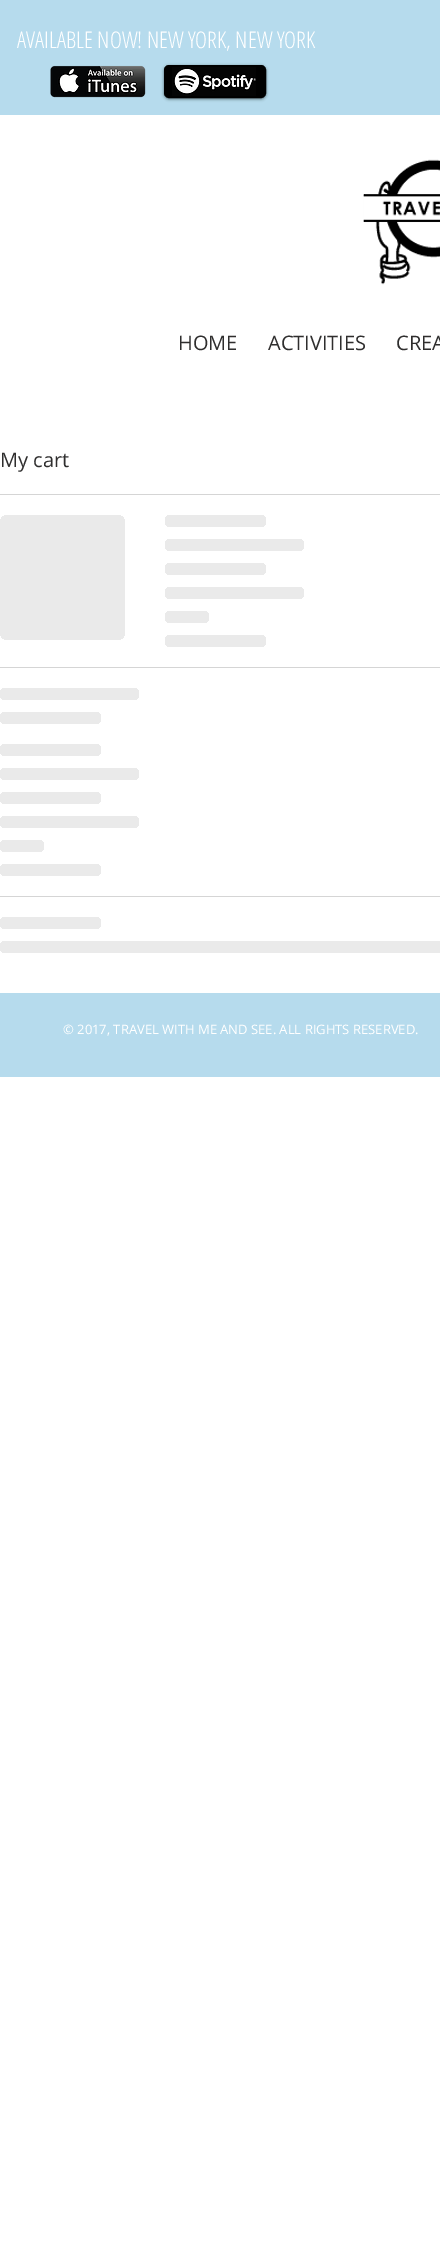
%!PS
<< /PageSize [440 2260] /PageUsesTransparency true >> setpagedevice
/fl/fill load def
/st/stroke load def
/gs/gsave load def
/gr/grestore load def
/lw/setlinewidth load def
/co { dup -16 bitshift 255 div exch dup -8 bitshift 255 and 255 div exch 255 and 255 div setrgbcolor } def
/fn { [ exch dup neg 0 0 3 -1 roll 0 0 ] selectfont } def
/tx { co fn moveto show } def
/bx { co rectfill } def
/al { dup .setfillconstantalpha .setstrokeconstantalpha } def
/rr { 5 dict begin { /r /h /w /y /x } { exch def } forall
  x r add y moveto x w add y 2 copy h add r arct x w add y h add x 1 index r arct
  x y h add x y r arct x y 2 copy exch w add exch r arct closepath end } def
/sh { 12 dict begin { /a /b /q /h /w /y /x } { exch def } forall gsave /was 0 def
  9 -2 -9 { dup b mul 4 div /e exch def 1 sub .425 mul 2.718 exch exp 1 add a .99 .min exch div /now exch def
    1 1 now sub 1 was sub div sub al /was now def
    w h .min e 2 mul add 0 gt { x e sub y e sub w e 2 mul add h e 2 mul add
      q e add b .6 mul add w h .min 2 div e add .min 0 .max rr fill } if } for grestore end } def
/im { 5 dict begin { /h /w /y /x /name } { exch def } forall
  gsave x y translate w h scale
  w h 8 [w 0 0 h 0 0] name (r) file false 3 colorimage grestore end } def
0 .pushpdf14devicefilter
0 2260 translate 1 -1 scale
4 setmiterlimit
0 0 440 2260 16#FFFFFF bx
0 0 440 115 16#B6DBED bx
(media/1.raw) 50 65 96 33 im
16#000000 co
164 66 102 33 5 1.5 .5 sh
165 66 100 31 4 rr gs fl gr
2 lw
st
(media/2.raw) 172 67 84 29 im
(media/3.raw) 363 159 77 126 im
0 494 440 1 16#D5D5D5 bx
gs 0 515 125 125 8 rr clip newpath
<< /ShadingType 2 /ColorSpace /DeviceRGB /Coords [0 578 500 578] /Extend [true true] /Function << /FunctionType 3 /Domain [0 1] /Functions [<< /FunctionType 2 /Domain [0 1] /C0 [.918 .918 .918] /C1 [.918 .918 .918] /N 1 >> << /FunctionType 2 /Domain [0 1] /C0 [.918 .918 .918] /C1 [.835 .835 .835] /N 1 >> << /FunctionType 2 /Domain [0 1] /C0 [.835 .835 .835] /C1 [.918 .918 .918] /N 1 >> << /FunctionType 2 /Domain [0 1] /C0 [.918 .918 .918] /C1 [.918 .918 .918] /N 1 >>] /Bounds [.25 .37 .63] /Encode [0 1 0 1 0 1 0 1] >> >> shfill gr
gs 165 515 101 12 6 rr clip newpath
<< /ShadingType 2 /ColorSpace /DeviceRGB /Coords [165 521 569 521] /Extend [true true] /Function << /FunctionType 3 /Domain [0 1] /Functions [<< /FunctionType 2 /Domain [0 1] /C0 [.918 .918 .918] /C1 [.918 .918 .918] /N 1 >> << /FunctionType 2 /Domain [0 1] /C0 [.918 .918 .918] /C1 [.835 .835 .835] /N 1 >> << /FunctionType 2 /Domain [0 1] /C0 [.835 .835 .835] /C1 [.918 .918 .918] /N 1 >> << /FunctionType 2 /Domain [0 1] /C0 [.918 .918 .918] /C1 [.918 .918 .918] /N 1 >>] /Bounds [.25 .37 .63] /Encode [0 1 0 1 0 1 0 1] >> >> shfill gr
gs 165 539 139 12 6 rr clip newpath
<< /ShadingType 2 /ColorSpace /DeviceRGB /Coords [165 545 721 545] /Extend [true true] /Function << /FunctionType 3 /Domain [0 1] /Functions [<< /FunctionType 2 /Domain [0 1] /C0 [.918 .918 .918] /C1 [.918 .918 .918] /N 1 >> << /FunctionType 2 /Domain [0 1] /C0 [.918 .918 .918] /C1 [.835 .835 .835] /N 1 >> << /FunctionType 2 /Domain [0 1] /C0 [.835 .835 .835] /C1 [.918 .918 .918] /N 1 >> << /FunctionType 2 /Domain [0 1] /C0 [.918 .918 .918] /C1 [.918 .918 .918] /N 1 >>] /Bounds [.25 .37 .63] /Encode [0 1 0 1 0 1 0 1] >> >> shfill gr
gs 165 563 101 12 6 rr clip newpath
<< /ShadingType 2 /ColorSpace /DeviceRGB /Coords [165 569 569 569] /Extend [true true] /Function << /FunctionType 3 /Domain [0 1] /Functions [<< /FunctionType 2 /Domain [0 1] /C0 [.918 .918 .918] /C1 [.918 .918 .918] /N 1 >> << /FunctionType 2 /Domain [0 1] /C0 [.918 .918 .918] /C1 [.835 .835 .835] /N 1 >> << /FunctionType 2 /Domain [0 1] /C0 [.835 .835 .835] /C1 [.918 .918 .918] /N 1 >> << /FunctionType 2 /Domain [0 1] /C0 [.918 .918 .918] /C1 [.918 .918 .918] /N 1 >>] /Bounds [.25 .37 .63] /Encode [0 1 0 1 0 1 0 1] >> >> shfill gr
gs 165 587 139 12 6 rr clip newpath
<< /ShadingType 2 /ColorSpace /DeviceRGB /Coords [165 593 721 593] /Extend [true true] /Function << /FunctionType 3 /Domain [0 1] /Functions [<< /FunctionType 2 /Domain [0 1] /C0 [.918 .918 .918] /C1 [.918 .918 .918] /N 1 >> << /FunctionType 2 /Domain [0 1] /C0 [.918 .918 .918] /C1 [.835 .835 .835] /N 1 >> << /FunctionType 2 /Domain [0 1] /C0 [.835 .835 .835] /C1 [.918 .918 .918] /N 1 >> << /FunctionType 2 /Domain [0 1] /C0 [.918 .918 .918] /C1 [.918 .918 .918] /N 1 >>] /Bounds [.25 .37 .63] /Encode [0 1 0 1 0 1 0 1] >> >> shfill gr
gs 165 611 44 12 6 rr clip newpath
<< /ShadingType 2 /ColorSpace /DeviceRGB /Coords [165 617 341 617] /Extend [true true] /Function << /FunctionType 3 /Domain [0 1] /Functions [<< /FunctionType 2 /Domain [0 1] /C0 [.918 .918 .918] /C1 [.918 .918 .918] /N 1 >> << /FunctionType 2 /Domain [0 1] /C0 [.918 .918 .918] /C1 [.835 .835 .835] /N 1 >> << /FunctionType 2 /Domain [0 1] /C0 [.835 .835 .835] /C1 [.918 .918 .918] /N 1 >> << /FunctionType 2 /Domain [0 1] /C0 [.918 .918 .918] /C1 [.918 .918 .918] /N 1 >>] /Bounds [.25 .37 .63] /Encode [0 1 0 1 0 1 0 1] >> >> shfill gr
gs 165 635 101 12 6 rr clip newpath
<< /ShadingType 2 /ColorSpace /DeviceRGB /Coords [165 641 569 641] /Extend [true true] /Function << /FunctionType 3 /Domain [0 1] /Functions [<< /FunctionType 2 /Domain [0 1] /C0 [.918 .918 .918] /C1 [.918 .918 .918] /N 1 >> << /FunctionType 2 /Domain [0 1] /C0 [.918 .918 .918] /C1 [.835 .835 .835] /N 1 >> << /FunctionType 2 /Domain [0 1] /C0 [.835 .835 .835] /C1 [.918 .918 .918] /N 1 >> << /FunctionType 2 /Domain [0 1] /C0 [.918 .918 .918] /C1 [.918 .918 .918] /N 1 >>] /Bounds [.25 .37 .63] /Encode [0 1 0 1 0 1 0 1] >> >> shfill gr
0 667 440 1 16#D5D5D5 bx
gs 0 688 139 12 6 rr clip newpath
<< /ShadingType 2 /ColorSpace /DeviceRGB /Coords [0 694 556 694] /Extend [true true] /Function << /FunctionType 3 /Domain [0 1] /Functions [<< /FunctionType 2 /Domain [0 1] /C0 [.918 .918 .918] /C1 [.918 .918 .918] /N 1 >> << /FunctionType 2 /Domain [0 1] /C0 [.918 .918 .918] /C1 [.835 .835 .835] /N 1 >> << /FunctionType 2 /Domain [0 1] /C0 [.835 .835 .835] /C1 [.918 .918 .918] /N 1 >> << /FunctionType 2 /Domain [0 1] /C0 [.918 .918 .918] /C1 [.918 .918 .918] /N 1 >>] /Bounds [.25 .37 .63] /Encode [0 1 0 1 0 1 0 1] >> >> shfill gr
gs 0 712 101 12 6 rr clip newpath
<< /ShadingType 2 /ColorSpace /DeviceRGB /Coords [0 718 404 718] /Extend [true true] /Function << /FunctionType 3 /Domain [0 1] /Functions [<< /FunctionType 2 /Domain [0 1] /C0 [.918 .918 .918] /C1 [.918 .918 .918] /N 1 >> << /FunctionType 2 /Domain [0 1] /C0 [.918 .918 .918] /C1 [.835 .835 .835] /N 1 >> << /FunctionType 2 /Domain [0 1] /C0 [.835 .835 .835] /C1 [.918 .918 .918] /N 1 >> << /FunctionType 2 /Domain [0 1] /C0 [.918 .918 .918] /C1 [.918 .918 .918] /N 1 >>] /Bounds [.25 .37 .63] /Encode [0 1 0 1 0 1 0 1] >> >> shfill gr
gs 0 744 101 12 6 rr clip newpath
<< /ShadingType 2 /ColorSpace /DeviceRGB /Coords [0 750 404 750] /Extend [true true] /Function << /FunctionType 3 /Domain [0 1] /Functions [<< /FunctionType 2 /Domain [0 1] /C0 [.918 .918 .918] /C1 [.918 .918 .918] /N 1 >> << /FunctionType 2 /Domain [0 1] /C0 [.918 .918 .918] /C1 [.835 .835 .835] /N 1 >> << /FunctionType 2 /Domain [0 1] /C0 [.835 .835 .835] /C1 [.918 .918 .918] /N 1 >> << /FunctionType 2 /Domain [0 1] /C0 [.918 .918 .918] /C1 [.918 .918 .918] /N 1 >>] /Bounds [.25 .37 .63] /Encode [0 1 0 1 0 1 0 1] >> >> shfill gr
gs 0 768 139 12 6 rr clip newpath
<< /ShadingType 2 /ColorSpace /DeviceRGB /Coords [0 774 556 774] /Extend [true true] /Function << /FunctionType 3 /Domain [0 1] /Functions [<< /FunctionType 2 /Domain [0 1] /C0 [.918 .918 .918] /C1 [.918 .918 .918] /N 1 >> << /FunctionType 2 /Domain [0 1] /C0 [.918 .918 .918] /C1 [.835 .835 .835] /N 1 >> << /FunctionType 2 /Domain [0 1] /C0 [.835 .835 .835] /C1 [.918 .918 .918] /N 1 >> << /FunctionType 2 /Domain [0 1] /C0 [.918 .918 .918] /C1 [.918 .918 .918] /N 1 >>] /Bounds [.25 .37 .63] /Encode [0 1 0 1 0 1 0 1] >> >> shfill gr
gs 0 792 101 12 6 rr clip newpath
<< /ShadingType 2 /ColorSpace /DeviceRGB /Coords [0 798 404 798] /Extend [true true] /Function << /FunctionType 3 /Domain [0 1] /Functions [<< /FunctionType 2 /Domain [0 1] /C0 [.918 .918 .918] /C1 [.918 .918 .918] /N 1 >> << /FunctionType 2 /Domain [0 1] /C0 [.918 .918 .918] /C1 [.835 .835 .835] /N 1 >> << /FunctionType 2 /Domain [0 1] /C0 [.835 .835 .835] /C1 [.918 .918 .918] /N 1 >> << /FunctionType 2 /Domain [0 1] /C0 [.918 .918 .918] /C1 [.918 .918 .918] /N 1 >>] /Bounds [.25 .37 .63] /Encode [0 1 0 1 0 1 0 1] >> >> shfill gr
gs 0 816 139 12 6 rr clip newpath
<< /ShadingType 2 /ColorSpace /DeviceRGB /Coords [0 822 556 822] /Extend [true true] /Function << /FunctionType 3 /Domain [0 1] /Functions [<< /FunctionType 2 /Domain [0 1] /C0 [.918 .918 .918] /C1 [.918 .918 .918] /N 1 >> << /FunctionType 2 /Domain [0 1] /C0 [.918 .918 .918] /C1 [.835 .835 .835] /N 1 >> << /FunctionType 2 /Domain [0 1] /C0 [.835 .835 .835] /C1 [.918 .918 .918] /N 1 >> << /FunctionType 2 /Domain [0 1] /C0 [.918 .918 .918] /C1 [.918 .918 .918] /N 1 >>] /Bounds [.25 .37 .63] /Encode [0 1 0 1 0 1 0 1] >> >> shfill gr
gs 0 840 44 12 6 rr clip newpath
<< /ShadingType 2 /ColorSpace /DeviceRGB /Coords [0 846 176 846] /Extend [true true] /Function << /FunctionType 3 /Domain [0 1] /Functions [<< /FunctionType 2 /Domain [0 1] /C0 [.918 .918 .918] /C1 [.918 .918 .918] /N 1 >> << /FunctionType 2 /Domain [0 1] /C0 [.918 .918 .918] /C1 [.835 .835 .835] /N 1 >> << /FunctionType 2 /Domain [0 1] /C0 [.835 .835 .835] /C1 [.918 .918 .918] /N 1 >> << /FunctionType 2 /Domain [0 1] /C0 [.918 .918 .918] /C1 [.918 .918 .918] /N 1 >>] /Bounds [.25 .37 .63] /Encode [0 1 0 1 0 1 0 1] >> >> shfill gr
gs 0 864 101 12 6 rr clip newpath
<< /ShadingType 2 /ColorSpace /DeviceRGB /Coords [0 870 404 870] /Extend [true true] /Function << /FunctionType 3 /Domain [0 1] /Functions [<< /FunctionType 2 /Domain [0 1] /C0 [.918 .918 .918] /C1 [.918 .918 .918] /N 1 >> << /FunctionType 2 /Domain [0 1] /C0 [.918 .918 .918] /C1 [.835 .835 .835] /N 1 >> << /FunctionType 2 /Domain [0 1] /C0 [.835 .835 .835] /C1 [.918 .918 .918] /N 1 >> << /FunctionType 2 /Domain [0 1] /C0 [.918 .918 .918] /C1 [.918 .918 .918] /N 1 >>] /Bounds [.25 .37 .63] /Encode [0 1 0 1 0 1 0 1] >> >> shfill gr
0 896 440 1 16#D5D5D5 bx
gs 0 917 101 12 6 rr clip newpath
<< /ShadingType 2 /ColorSpace /DeviceRGB /Coords [0 923 404 923] /Extend [true true] /Function << /FunctionType 3 /Domain [0 1] /Functions [<< /FunctionType 2 /Domain [0 1] /C0 [.918 .918 .918] /C1 [.918 .918 .918] /N 1 >> << /FunctionType 2 /Domain [0 1] /C0 [.918 .918 .918] /C1 [.835 .835 .835] /N 1 >> << /FunctionType 2 /Domain [0 1] /C0 [.835 .835 .835] /C1 [.918 .918 .918] /N 1 >> << /FunctionType 2 /Domain [0 1] /C0 [.918 .918 .918] /C1 [.918 .918 .918] /N 1 >>] /Bounds [.25 .37 .63] /Encode [0 1 0 1 0 1 0 1] >> >> shfill gr
gs 0 941 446 12 6 rr clip newpath
<< /ShadingType 2 /ColorSpace /DeviceRGB /Coords [0 947 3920 947] /Extend [true true] /Function << /FunctionType 3 /Domain [0 1] /Functions [<< /FunctionType 2 /Domain [0 1] /C0 [.918 .918 .918] /C1 [.918 .918 .918] /N 1 >> << /FunctionType 2 /Domain [0 1] /C0 [.918 .918 .918] /C1 [.835 .835 .835] /N 1 >> << /FunctionType 2 /Domain [0 1] /C0 [.835 .835 .835] /C1 [.918 .918 .918] /N 1 >> << /FunctionType 2 /Domain [0 1] /C0 [.918 .918 .918] /C1 [.918 .918 .918] /N 1 >>] /Bounds [.25 .37 .63] /Encode [0 1 0 1 0 1 0 1] >> >> shfill gr
0 993 440 84 16#B6DBED bx
(AVAILABLE NOW! NEW YORK, NEW YORK) 17 48 /OpenSansCondensed-Light 23 16#FFFFFF tx
(HOME) 178 350 /OpenSans-Regular 20 16#2F2E2E tx
(ACTIVITIES) 268 350 /OpenSans-Regular 20 16#2F2E2E tx
(CREA) 396 350 /OpenSans-Regular 20 16#2F2E2E tx
(My cart) 0 467 /OpenSans-Regular 20 16#2F2E2E tx
(© 2017, TRAVEL WITH ME AND SEE. ALL RIGHTS RESERVED.) 63 1034 /OpenSans-Regular 13 16#FFFFFF tx
.poppdf14devicefilter showpage
